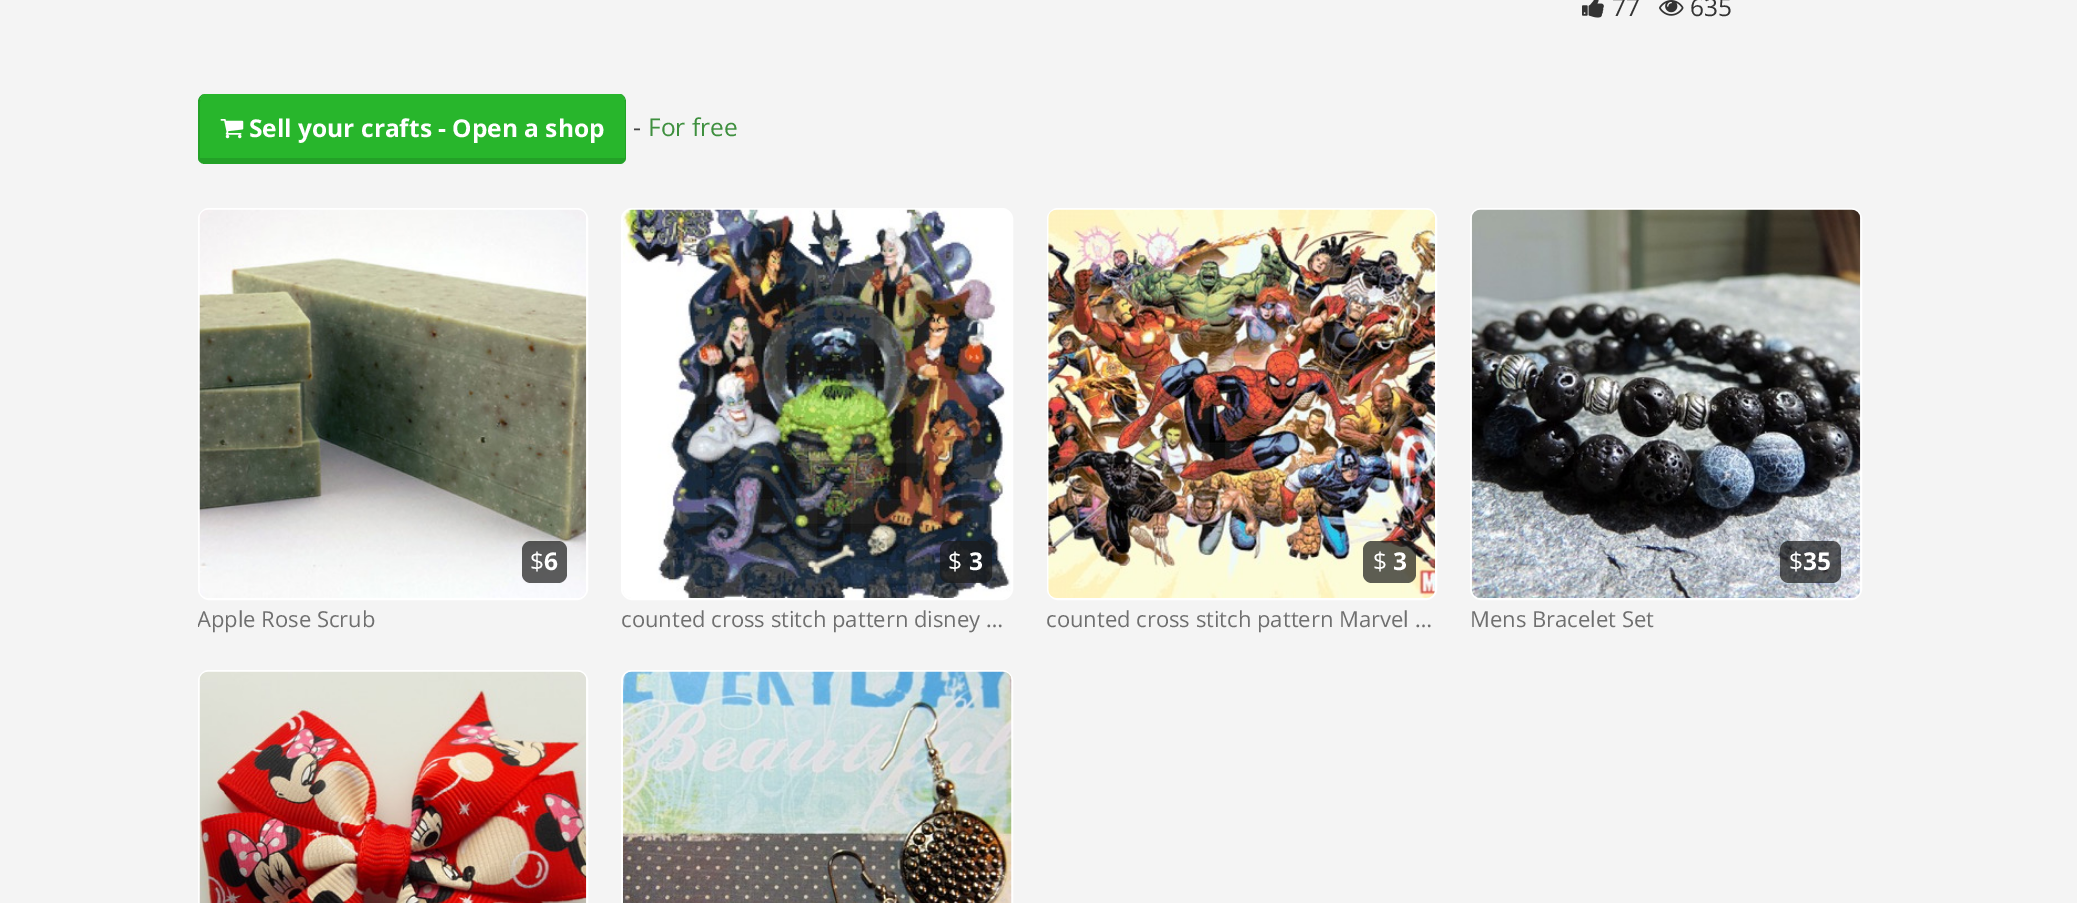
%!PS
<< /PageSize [2077 903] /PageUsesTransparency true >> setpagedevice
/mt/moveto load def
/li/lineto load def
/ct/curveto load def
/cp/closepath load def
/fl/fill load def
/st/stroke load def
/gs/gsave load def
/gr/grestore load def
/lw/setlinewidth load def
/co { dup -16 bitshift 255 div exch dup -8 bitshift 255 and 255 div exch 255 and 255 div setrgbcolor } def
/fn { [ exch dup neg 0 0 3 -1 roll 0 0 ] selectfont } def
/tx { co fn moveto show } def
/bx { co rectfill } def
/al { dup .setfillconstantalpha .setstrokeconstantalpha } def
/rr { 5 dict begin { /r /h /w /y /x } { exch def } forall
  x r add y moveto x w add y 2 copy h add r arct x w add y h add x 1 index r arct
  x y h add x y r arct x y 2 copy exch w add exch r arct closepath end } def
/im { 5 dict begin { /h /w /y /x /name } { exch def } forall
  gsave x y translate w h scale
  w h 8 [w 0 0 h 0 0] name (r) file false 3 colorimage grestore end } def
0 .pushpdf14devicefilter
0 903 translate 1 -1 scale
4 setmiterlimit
0 0 2077 903 16#F4F4F4 bx
(media/1.raw) 1582 0 22 18 im
(media/2.raw) 1659 0 25 16 im
16#28B62C co
205 94 mt 620 94 li 622 94 625 98 625 102 ct 625 158 li 200 158 li 200 102 li 200 98 202 94 205 94 ct cp fl
16#23A127 co
205 94 mt 620 94 li 623 94 626 98 626 102 ct 626 158 li 626 161 623 164 620 164 ct 205 164 li 201 164 198 161 198 158 ct 198 102 li 198 98 201 94 205 94 ct cp 205 94 mt 620 94 li 622 94 625 98 625 102 ct 625 158 li 200 158 li 200 102 li 200 98 202 94 205 94 ct cp eofill
(media/3.raw) 220 119 24 20 im
16#FFFFFF co
2 lw
199 209 388 390 10 rr st
(media/4.raw) 199 209 388 389 im
0.7 al
16#191919 co
522 541 45 42 9 rr fl
1 al
16#FFFFFF co
622 209 390 390 10 rr st
(media/5.raw) 623 209 388 389 im
0.7 al
16#191919 co
940 541 52 42 9 rr fl
1 al
16#FFFFFF co
1048 209 388 390 10 rr st
(media/6.raw) 1048 209 387 389 im
0.7 al
16#191919 co
1363 541 53 42 9 rr fl
1 al
16#FFFFFF co
1471 209 390 390 10 rr st
(media/7.raw) 1471 209 390 389 im
0.7 al
16#191919 co
1780 541 61 42 9 rr fl
1 al
16#FFFFFF co
199 671 388 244 10 rr st
(media/8.raw) 199 671 388 232 im
622 671 390 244 10 rr st
(media/9.raw) 623 671 389 232 im
(77) 1612 16 /OpenSans-Regular 24.5 16#333333 tx
(635) 1690 16 /OpenSans-Regular 24.5 16#333333 tx
(Sell your crafts - Open a shop) 249 137 /OpenSans-Bold 24.5 16#FFFFFF tx
(-) 633 136 /OpenSans-Regular 24.5 16#444444 tx
(For free) 648 136 /OpenSans-Regular 24.5 16#3E8F3E tx
($) 530 570 /OpenSans-Regular 24.5 16#FFFFFF tx
(6) 544 570 /OpenSans-Bold 24.5 16#FFFFFF tx
gs
198 606 390 31 rectclip
(Apple Rose Scrub) 197 627 /OpenSans-Regular 22 16#6F6F6F tx
gr
($) 948 570 /OpenSans-Regular 24.5 16#FFFFFF tx
(3) 969 570 /OpenSans-Bold 24.5 16#FFFFFF tx
(counted cross stitch pattern disney …) 621 627 /OpenSans-Regular 22 16#6F6F6F tx
($) 1373 570 /OpenSans-Regular 24.5 16#FFFFFF tx
(3) 1393 570 /OpenSans-Bold 24.5 16#FFFFFF tx
(counted cross stitch pattern Marvel …) 1046 627 /OpenSans-Regular 22 16#6F6F6F tx
($) 1789 570 /OpenSans-Regular 24.5 16#FFFFFF tx
(35) 1803 570 /OpenSans-Bold 24.5 16#FFFFFF tx
(Mens Bracelet Set) 1470 627 /OpenSans-Regular 22 16#6F6F6F tx
.poppdf14devicefilter showpage
